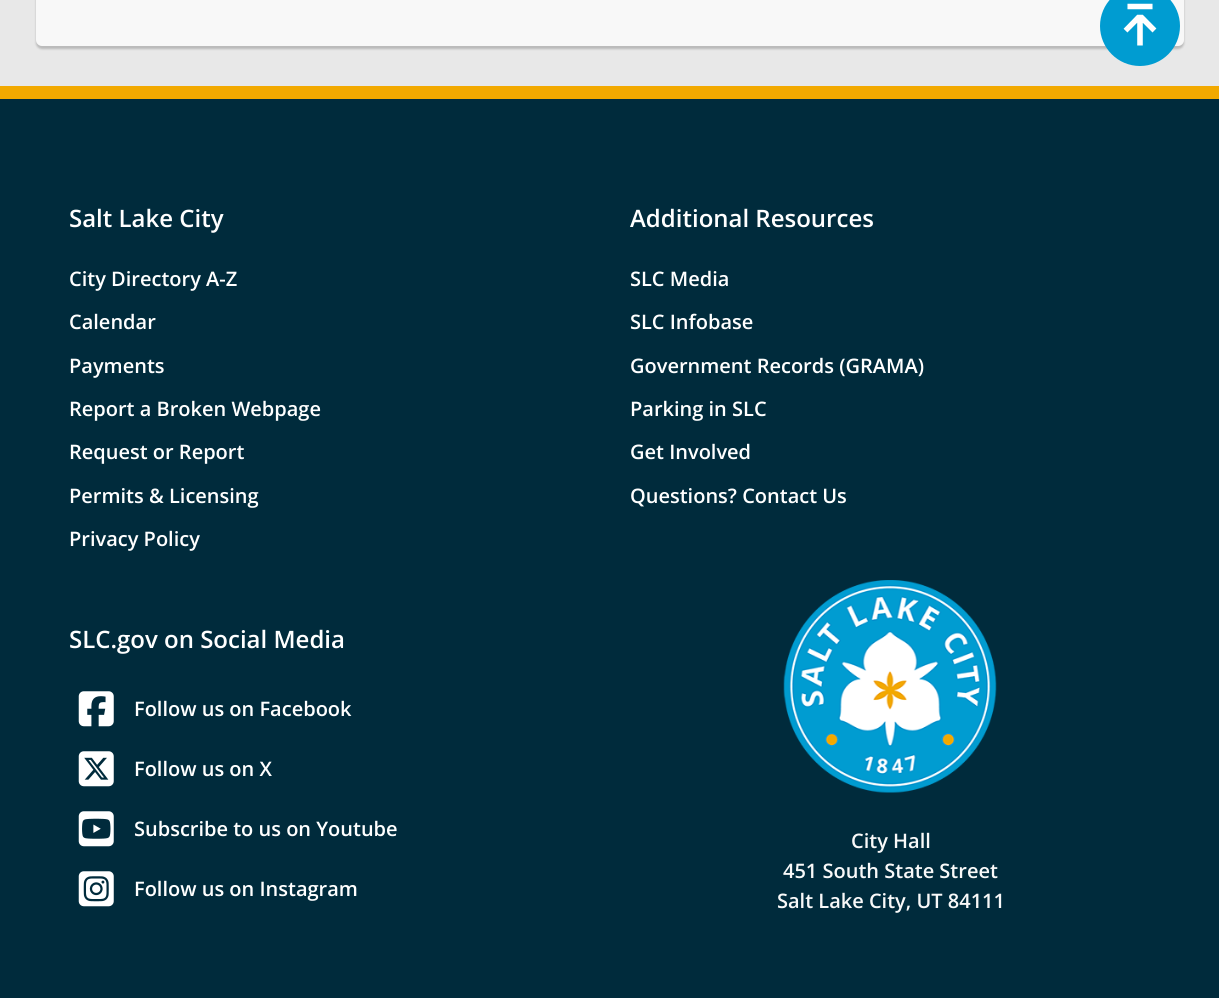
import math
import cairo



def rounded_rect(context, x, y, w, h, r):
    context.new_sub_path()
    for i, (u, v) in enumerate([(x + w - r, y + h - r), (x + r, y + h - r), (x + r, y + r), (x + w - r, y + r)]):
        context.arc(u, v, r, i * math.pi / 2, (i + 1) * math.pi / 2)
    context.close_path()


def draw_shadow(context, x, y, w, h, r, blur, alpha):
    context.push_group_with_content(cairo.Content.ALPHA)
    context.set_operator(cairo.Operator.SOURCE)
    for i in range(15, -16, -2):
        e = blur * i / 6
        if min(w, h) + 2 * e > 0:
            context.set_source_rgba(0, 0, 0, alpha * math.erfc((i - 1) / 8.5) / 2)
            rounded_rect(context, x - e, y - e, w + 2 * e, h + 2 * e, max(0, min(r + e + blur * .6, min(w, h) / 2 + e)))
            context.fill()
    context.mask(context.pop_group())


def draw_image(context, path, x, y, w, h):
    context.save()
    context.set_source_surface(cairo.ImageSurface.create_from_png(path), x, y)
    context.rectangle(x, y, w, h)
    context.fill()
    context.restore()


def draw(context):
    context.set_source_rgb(232 / 255, 232 / 255, 232 / 255)
    context.paint()
    context.set_source_rgb(0, 0, 0)
    draw_shadow(context, 36, -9, 1148, 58, 6, 1, 0.2)
    context.set_source_rgb(248 / 255, 248 / 255, 248 / 255)
    rounded_rect(context, 36, -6, 1148, 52, 6)
    context.fill()
    context.set_source_rgb(0, 43 / 255, 60 / 255)
    context.rectangle(0, 99, 1219, 899)
    context.fill()
    context.set_source_rgb(242 / 255, 169 / 255, 0)
    context.rectangle(0, 86, 1219, 13)
    context.fill()
    context.set_source_rgb(0, 156 / 255, 209 / 255)
    context.arc(1140, 26, 40, 0, 2 * math.pi)
    context.fill()
    draw_image(context, "images/1.png", 1123, 3, 34, 43)
    draw_image(context, "images/2.png", 78, 691, 36, 36)
    draw_image(context, "images/3.png", 78, 751, 36, 36)
    draw_image(context, "images/4.png", 78, 811, 36, 36)
    draw_image(context, "images/5.png", 78, 871, 36, 36)
    draw_image(context, "images/6.png", 783, 580, 214, 213)
    context.select_font_face("Open Sans SemiBold")
    context.set_font_size(24)
    context.set_source_rgb(1, 1, 1)
    context.move_to(69, 227)
    context.show_text("Salt Lake City")
    context.set_font_size(20)
    context.move_to(69, 286)
    context.show_text("City Directory A-Z")
    context.move_to(69, 329)
    context.show_text("Calendar")
    context.move_to(69, 373)
    context.show_text("Payments")
    context.move_to(69, 416)
    context.show_text("Report a Broken Webpage")
    context.move_to(69, 459)
    context.show_text("Request or Report")
    context.move_to(69, 503)
    context.show_text("Permits & Licensing")
    context.move_to(69, 546)
    context.show_text("Privacy Policy")
    context.set_font_size(24)
    context.move_to(630, 227)
    context.show_text("Additional Resources")
    context.set_font_size(20)
    context.move_to(630, 286)
    context.show_text("SLC Media")
    context.move_to(630, 329)
    context.show_text("SLC Infobase")
    context.move_to(630, 373)
    context.show_text("Government Records (GRAMA)")
    context.move_to(630, 416)
    context.show_text("Parking in SLC")
    context.move_to(630, 459)
    context.show_text("Get Involved")
    context.move_to(630, 503)
    context.show_text("Questions? Contact Us")
    context.set_font_size(24)
    context.move_to(69, 648)
    context.show_text("SLC.gov on Social Media")
    context.set_font_size(20)
    context.move_to(134, 716)
    context.show_text("Follow us on Facebook")
    context.move_to(134, 776)
    context.show_text("Follow us on X")
    context.move_to(134, 836)
    context.show_text("Subscribe to us on Youtube")
    context.move_to(134, 896)
    context.show_text("Follow us on Instagram")
    context.set_source_rgb(249 / 255, 249 / 255, 249 / 255)
    context.move_to(851, 848)
    context.show_text("City Hall")
    context.move_to(783, 878)
    context.show_text("451 South State Street")
    context.move_to(777, 908)
    context.show_text("Salt Lake City, UT 84111")


surface = cairo.ImageSurface(cairo.Format.RGB24, 1219, 998)
context = cairo.Context(surface)
options = cairo.FontOptions()
options.set_hint_metrics(cairo.HintMetrics.OFF)
options.set_hint_style(cairo.HintStyle.NONE)
context.set_font_options(options)
context.set_miter_limit(4)
draw(context)
surface.write_to_png("out.png")
